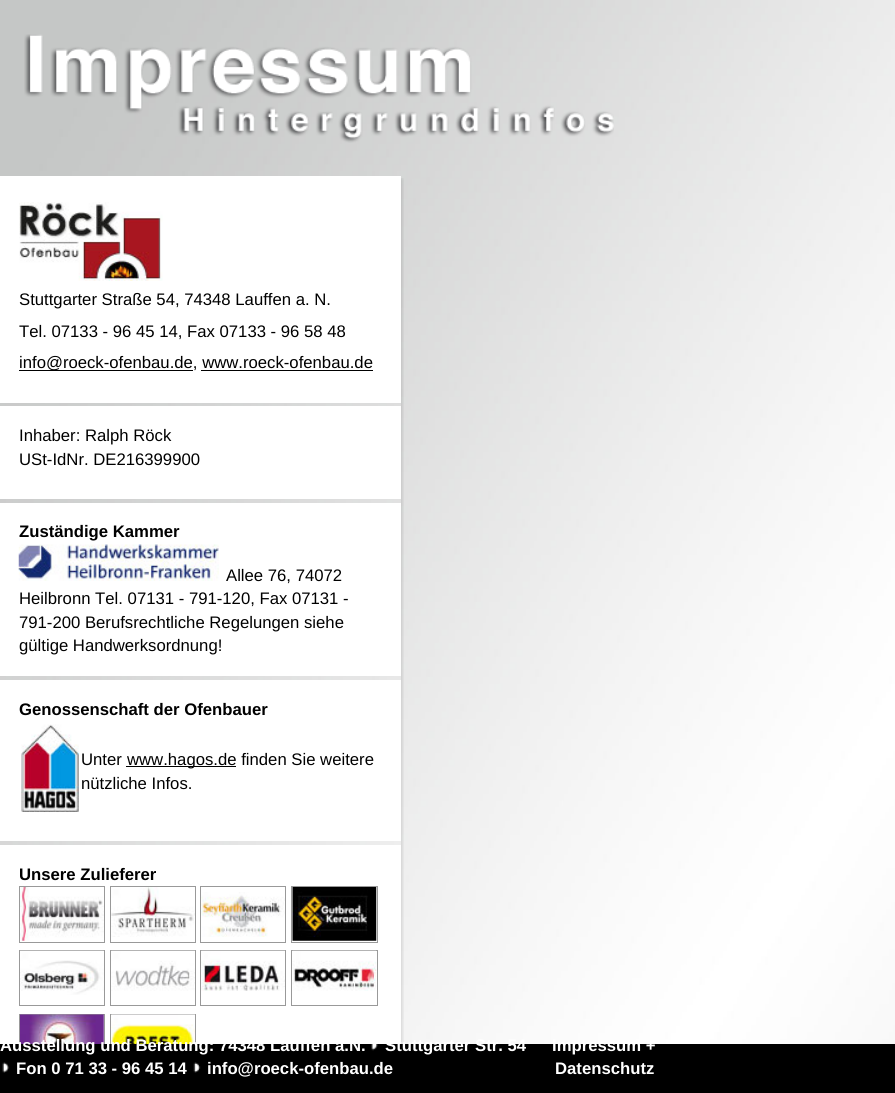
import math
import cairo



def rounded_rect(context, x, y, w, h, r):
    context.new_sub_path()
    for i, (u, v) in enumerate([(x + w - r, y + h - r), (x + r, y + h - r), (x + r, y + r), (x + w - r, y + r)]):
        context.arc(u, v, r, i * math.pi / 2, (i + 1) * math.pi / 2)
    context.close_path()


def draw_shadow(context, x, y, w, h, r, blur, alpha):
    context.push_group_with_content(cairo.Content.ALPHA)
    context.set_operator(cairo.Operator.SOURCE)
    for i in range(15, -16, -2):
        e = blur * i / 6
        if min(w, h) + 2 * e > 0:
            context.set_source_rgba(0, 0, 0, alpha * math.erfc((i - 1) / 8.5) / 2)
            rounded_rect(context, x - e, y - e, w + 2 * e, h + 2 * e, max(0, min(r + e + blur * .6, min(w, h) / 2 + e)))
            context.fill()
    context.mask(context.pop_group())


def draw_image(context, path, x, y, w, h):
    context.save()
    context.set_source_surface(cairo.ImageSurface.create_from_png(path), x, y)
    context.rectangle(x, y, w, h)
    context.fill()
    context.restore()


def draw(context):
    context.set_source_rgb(1, 1, 1)
    context.paint()
    draw_image(context, "images/1.png", 0, 0, 895, 1044)
    draw_image(context, "images/2.png", 24, 34, 590, 109)
    context.save()
    context.rectangle(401, 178, 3, 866)
    context.clip()
    context.set_source_rgb(0, 0, 0)
    draw_shadow(context, -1, 180, 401, 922, 0, 3, 0.3)
    context.restore()
    context.set_source_rgb(1, 1, 1)
    context.rectangle(0, 176, 401, 227)
    context.fill()
    draw_image(context, "images/3.png", 19, 202, 144, 79)
    context.set_source_rgb(0, 0, 0)
    context.rectangle(19, 370, 174, 1)
    context.fill()
    context.rectangle(201, 370, 172, 1)
    context.fill()
    context.set_source_rgb(1, 1, 1)
    context.rectangle(0, 406, 401, 93)
    context.fill()
    context.rectangle(0, 503, 401, 173)
    context.fill()
    draw_image(context, "images/4.png", 18, 544, 201, 37)
    context.rectangle(0, 680, 401, 161)
    context.fill()
    draw_image(context, "images/5.png", 21, 724, 58, 88)
    context.set_source_rgb(0, 0, 0)
    context.rectangle(126, 766, 110, 1)
    context.fill()
    context.set_source_rgb(1, 1, 1)
    context.rectangle(0, 845, 401, 199)
    context.fill()
    context.rectangle(19.5, 886.5, 85, 56)
    context.set_source_rgb(153 / 255, 153 / 255, 153 / 255)
    context.set_line_width(1)
    context.stroke()
    context.rectangle(110.5, 886.5, 85, 56)
    context.stroke()
    context.rectangle(200.5, 886.5, 85, 56)
    context.stroke()
    context.rectangle(291.5, 886.5, 86, 56)
    context.stroke()
    draw_image(context, "images/6.png", 20, 887, 84, 54)
    draw_image(context, "images/7.png", 111, 887, 84, 50)
    draw_image(context, "images/8.png", 201, 892, 84, 45)
    draw_image(context, "images/9.png", 292, 887, 85, 54)
    context.rectangle(19.5, 950.5, 85, 55)
    context.stroke()
    draw_image(context, "images/10.png", 20, 950, 84, 45)
    context.rectangle(110.5, 950.5, 85, 55)
    context.stroke()
    draw_image(context, "images/11.png", 111, 950, 84, 41)
    context.rectangle(200.5, 950.5, 85, 55)
    context.stroke()
    draw_image(context, "images/12.png", 201, 950, 84, 41)
    context.rectangle(291.5, 950.5, 86, 55)
    context.stroke()
    draw_image(context, "images/13.png", 292, 950, 85, 41)
    context.rectangle(19.5, 1014.5, 85, 55)
    context.stroke()
    draw_image(context, "images/14.png", 20, 1014, 84, 30)
    context.rectangle(110.5, 1014.5, 85, 55)
    context.stroke()
    draw_image(context, "images/15.png", 111, 1014, 84, 30)
    context.set_source_rgb(0, 0, 0)
    context.rectangle(0, 1044, 895, 49)
    context.fill()
    draw_image(context, "images/16.png", 371, 1044, 7, 7)
    draw_image(context, "images/17.png", 2, 1062, 7, 11)
    draw_image(context, "images/18.png", 193, 1062, 8, 11)
    context.select_font_face("Liberation Sans")
    context.set_font_size(16.7)
    context.move_to(19, 305)
    context.show_text("Stuttgarter Straße 54, 74348 Lauffen a. N.")
    context.move_to(19, 337)
    context.show_text("Tel. 07133 - 96 45 14, Fax 07133 - 96 58 48")
    context.move_to(19, 368)
    context.show_text("info@roeck-ofenbau.de, www.roeck-ofenbau.de")
    context.move_to(19, 441)
    context.show_text("Inhaber: Ralph Röck")
    context.move_to(19, 465)
    context.show_text("USt-IdNr. DE216399900")
    context.select_font_face("Liberation Sans", cairo.FontSlant.NORMAL, cairo.FontWeight.BOLD)
    context.move_to(19, 537)
    context.show_text("Zuständige Kammer")
    context.select_font_face("Liberation Sans")
    context.move_to(226, 581)
    context.show_text("Allee 76, 74072")
    context.move_to(19, 604)
    context.show_text("Heilbronn Tel. 07131 - 791-120, Fax 07131 -")
    context.move_to(19, 628)
    context.show_text("791-200 Berufsrechtliche Regelungen siehe")
    context.move_to(19, 651)
    context.show_text("gültige Handwerksordnung!")
    context.select_font_face("Liberation Sans", cairo.FontSlant.NORMAL, cairo.FontWeight.BOLD)
    context.move_to(19, 715)
    context.show_text("Genossenschaft der Ofenbauer")
    context.select_font_face("Liberation Sans")
    context.move_to(81, 765)
    context.show_text("Unter")
    context.move_to(127, 765)
    context.show_text("www.hagos.de finden Sie weitere")
    context.move_to(81, 789)
    context.show_text("nützliche Infos.")
    context.select_font_face("Liberation Sans", cairo.FontSlant.NORMAL, cairo.FontWeight.BOLD)
    context.move_to(19, 880)
    context.show_text("Unsere Zulieferer")
    context.set_source_rgb(1, 1, 1)
    context.move_to(0, 1051)
    context.show_text("Ausstellung und Beratung: 74348 Lauffen a.N.")
    context.move_to(385, 1051)
    context.show_text("Stuttgarter Str. 54")
    context.move_to(16, 1074)
    context.show_text("Fon 0 71 33 - 96 45 14")
    context.move_to(207, 1074)
    context.show_text("info@roeck-ofenbau.de")
    context.move_to(552, 1051)
    context.show_text("Impressum +")
    context.move_to(555, 1074)
    context.show_text("Datenschutz")


surface = cairo.ImageSurface(cairo.Format.RGB24, 895, 1093)
context = cairo.Context(surface)
options = cairo.FontOptions()
options.set_hint_metrics(cairo.HintMetrics.OFF)
options.set_hint_style(cairo.HintStyle.NONE)
context.set_font_options(options)
context.set_miter_limit(4)
draw(context)
surface.write_to_png("out.png")
